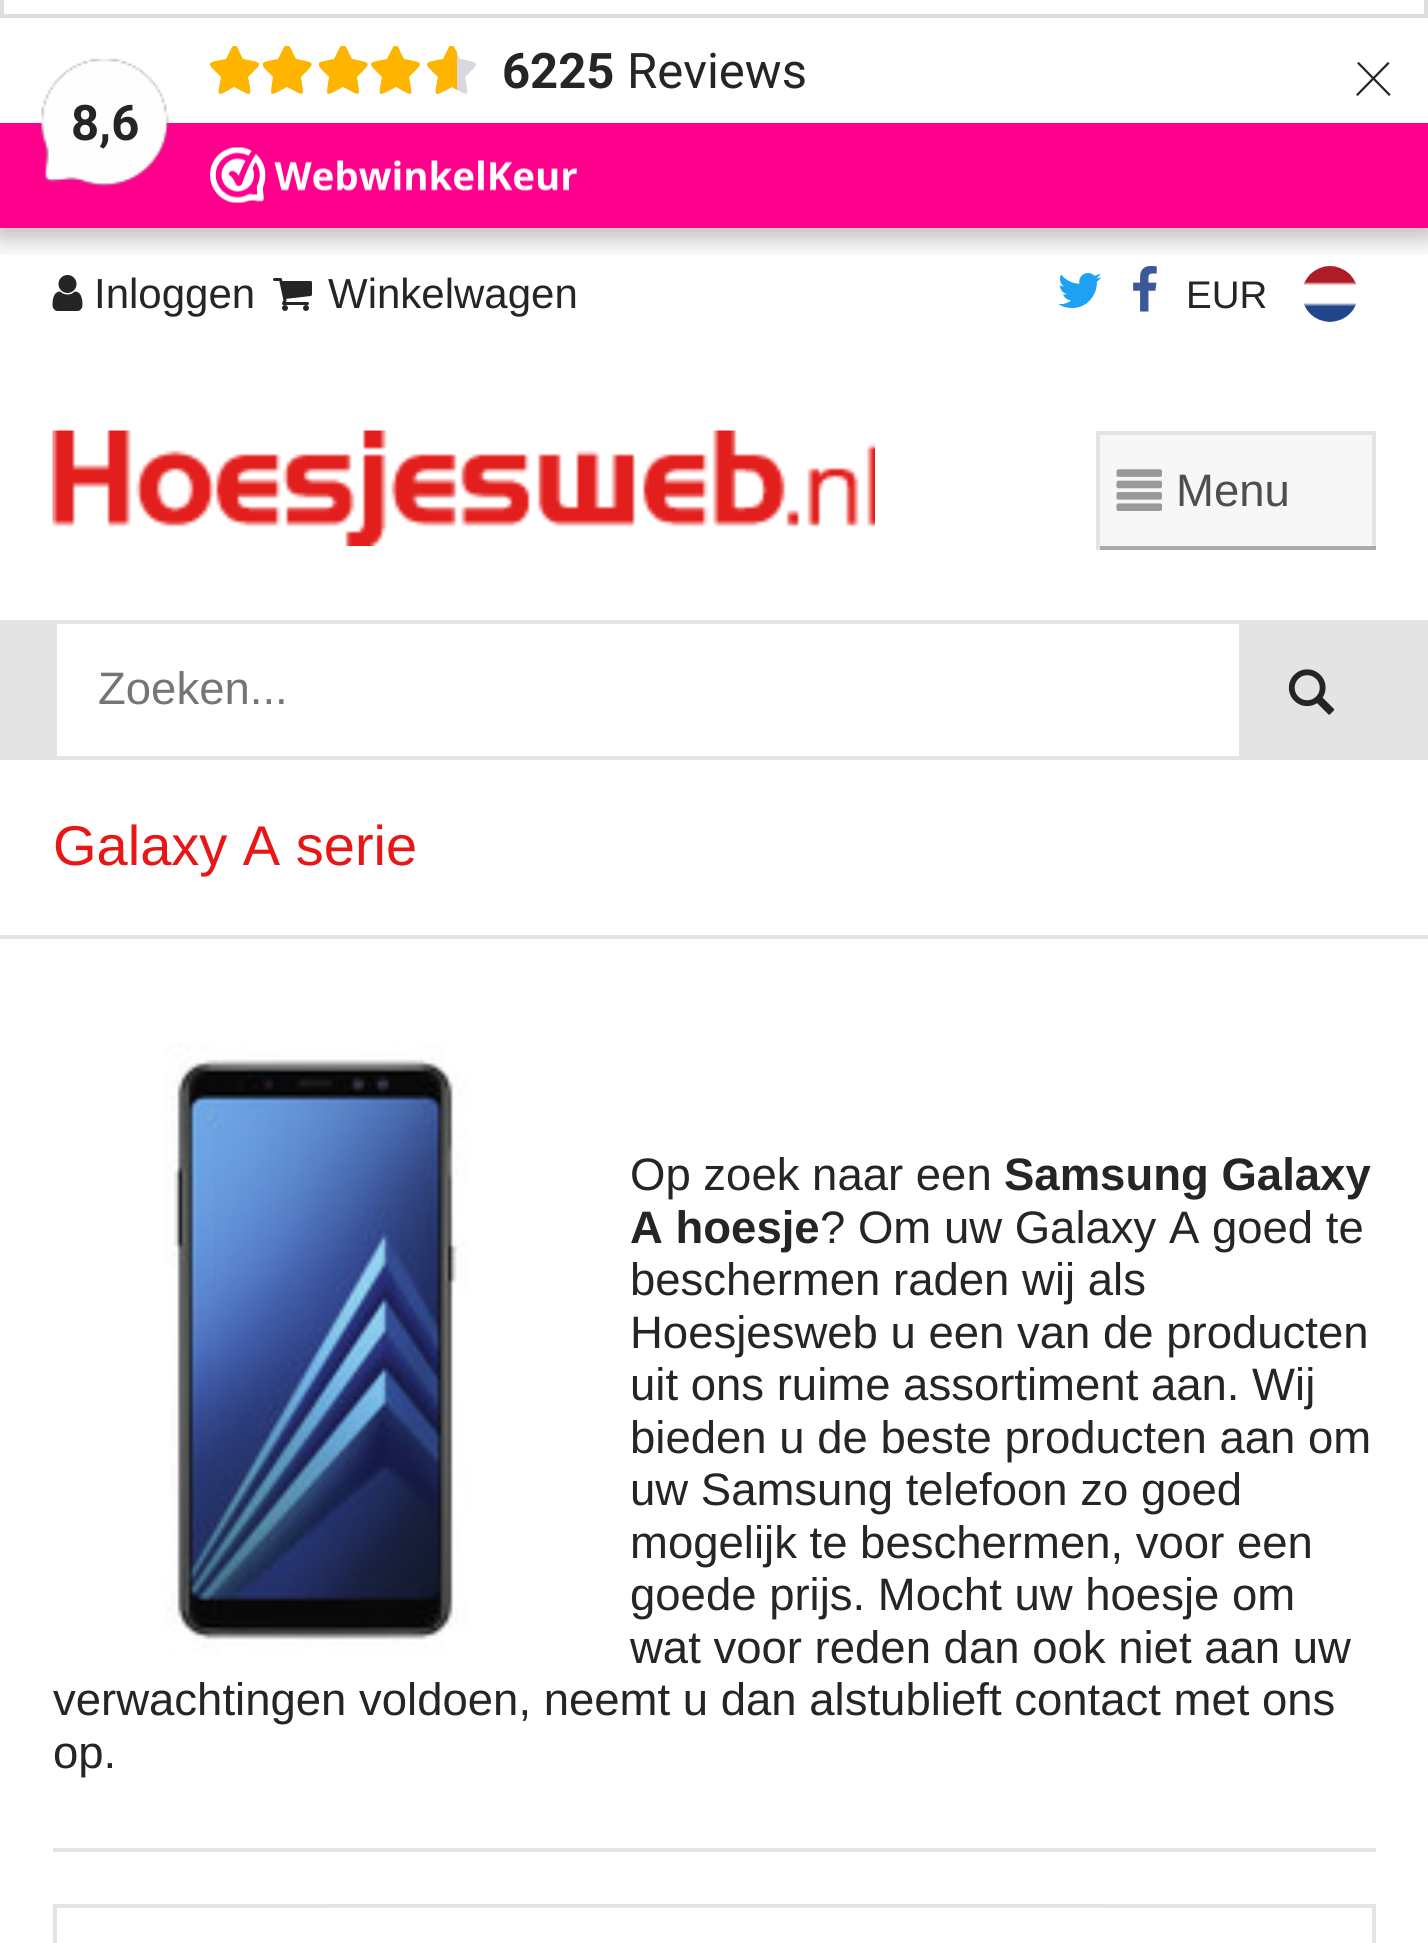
import math
import cairo



def rounded_rect(context, x, y, w, h, r):
    context.new_sub_path()
    for i, (u, v) in enumerate([(x + w - r, y + h - r), (x + r, y + h - r), (x + r, y + r), (x + w - r, y + r)]):
        context.arc(u, v, r, i * math.pi / 2, (i + 1) * math.pi / 2)
    context.close_path()


def draw_shadow(context, x, y, w, h, r, blur, alpha):
    context.push_group_with_content(cairo.Content.ALPHA)
    context.set_operator(cairo.Operator.SOURCE)
    for i in range(15, -16, -2):
        e = blur * i / 6
        if min(w, h) + 2 * e > 0:
            context.set_source_rgba(0, 0, 0, alpha * math.erfc((i - 1) / 8.5) / 2)
            rounded_rect(context, x - e, y - e, w + 2 * e, h + 2 * e, max(0, min(r + e + blur * .6, min(w, h) / 2 + e)))
            context.fill()
    context.mask(context.pop_group())


def draw_image(context, path, x, y, w, h):
    context.save()
    context.set_source_surface(cairo.ImageSurface.create_from_png(path), x, y)
    context.rectangle(x, y, w, h)
    context.fill()
    context.restore()


def draw(context):
    context.set_source_rgb(1, 1, 1)
    context.paint()
    draw_image(context, "images/6.png", 1133, 266, 24, 46)
    draw_image(context, "images/7.png", 1303, 266, 54, 56)
    context.set_source_rgb(0, 0, 0)
    draw_shadow(context, -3, -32, 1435, 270, 0, 10.5, 0.15)
    context.set_source_rgb(1, 1, 1)
    context.rectangle(0, 18, 1428, 105)
    context.fill()
    draw_image(context, "images/3.png", 52, 275, 31, 36)
    draw_image(context, "images/4.png", 273, 278, 39, 33)
    draw_image(context, "images/5.png", 1058, 273, 44, 35)
    context.save()
    context.rectangle(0, 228, 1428, 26)
    context.clip()
    context.set_source_rgb(0, 0, 0)
    draw_shadow(context, 0, 25, 1428, 210, 0, 17.5, 0.15)
    context.restore()
    context.rectangle(2, -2, 1424, 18)
    context.fill_preserve()
    context.set_source_rgb(222 / 255, 222 / 255, 222 / 255)
    context.set_line_width(4)
    context.stroke()
    context.save()
    context.rectangle(210, 46, 49, 49)
    context.clip()
    context.set_source_rgb(1, 180 / 255, 0)
    context.new_path()
    context.move_to(232, 47)
    context.line_to(234, 45)
    context.curve_to(237, 45, 238, 49, 239, 51)
    context.line_to(243, 59)
    context.curve_to(264, 63, 263, 62, 248, 77)
    context.curve_to(252, 98, 253, 97, 234, 87)
    context.curve_to(216, 97, 217, 98, 221, 77)
    context.curve_to(206, 62, 205, 63, 226, 59)
    context.close_path()
    context.fill()
    context.restore()
    context.save()
    context.rectangle(263, 46, 49, 49)
    context.clip()
    context.set_source_rgb(1, 180 / 255, 0)
    context.new_path()
    context.move_to(284, 47)
    context.line_to(286, 45)
    context.curve_to(290, 45, 291, 49, 292, 51)
    context.line_to(296, 59)
    context.curve_to(316, 63, 316, 62, 301, 77)
    context.curve_to(304, 98, 306, 97, 287, 87)
    context.curve_to(268, 97, 270, 98, 273, 77)
    context.curve_to(258, 62, 258, 63, 278, 59)
    context.close_path()
    context.fill()
    context.restore()
    context.save()
    context.rectangle(319, 46, 49, 49)
    context.clip()
    context.set_source_rgb(1, 180 / 255, 0)
    context.new_path()
    context.move_to(340, 47)
    context.line_to(342, 45)
    context.curve_to(346, 45, 347, 49, 348, 51)
    context.line_to(352, 59)
    context.curve_to(372, 63, 372, 62, 357, 77)
    context.curve_to(360, 98, 362, 97, 343, 87)
    context.curve_to(324, 97, 326, 98, 329, 77)
    context.curve_to(314, 62, 314, 63, 334, 59)
    context.close_path()
    context.fill()
    context.restore()
    context.save()
    context.rectangle(371, 46, 49, 49)
    context.clip()
    context.set_source_rgb(1, 180 / 255, 0)
    context.new_path()
    context.move_to(393, 47)
    context.line_to(395, 45)
    context.curve_to(398, 45, 399, 49, 400, 51)
    context.line_to(404, 59)
    context.curve_to(425, 63, 424, 62, 409, 77)
    context.curve_to(413, 98, 414, 97, 396, 87)
    context.curve_to(377, 97, 378, 98, 382, 77)
    context.curve_to(367, 62, 366, 63, 387, 59)
    context.close_path()
    context.fill()
    context.restore()
    context.save()
    context.rectangle(427, 46, 49, 49)
    context.clip()
    context.set_source_rgb(216 / 255, 216 / 255, 222 / 255)
    context.new_path()
    context.move_to(449, 47)
    context.line_to(451, 45)
    context.curve_to(454, 45, 455, 49, 456, 51)
    context.line_to(460, 59)
    context.curve_to(481, 63, 480, 62, 465, 77)
    context.curve_to(469, 98, 470, 97, 452, 87)
    context.curve_to(433, 97, 434, 98, 438, 77)
    context.curve_to(423, 62, 422, 63, 443, 59)
    context.close_path()
    context.fill()
    context.set_source_rgb(1, 180 / 255, 0)
    context.new_path()
    context.move_to(449, 47)
    context.curve_to(451, 42, 454, 47, 455, 49)
    context.line_to(457, 52)
    context.line_to(457, 90)
    context.line_to(452, 87)
    context.curve_to(433, 97, 434, 98, 438, 77)
    context.curve_to(423, 62, 422, 63, 443, 59)
    context.close_path()
    context.fill()
    context.restore()
    context.set_source_rgb(254 / 255, 0, 140 / 255)
    context.rectangle(0, 123, 1428, 105)
    context.fill()
    draw_image(context, "images/1.png", 41, 58, 128, 129)
    draw_image(context, "images/2.png", 210, 147, 367, 57)
    draw_image(context, "images/8.png", 52, 430, 823, 116)
    context.set_source_rgb(247 / 255, 247 / 255, 247 / 255)
    context.rectangle(1100, 435, 272, 111)
    context.fill()
    draw_image(context, "images/9.png", 1116, 469, 46, 42)
    context.set_source_rgb(228 / 255, 228 / 255, 228 / 255)
    context.rectangle(1096, 431, 280, 4)
    context.fill()
    context.rectangle(1372, 431, 4, 119)
    context.fill()
    context.set_source_rgb(170 / 255, 170 / 255, 170 / 255)
    context.rectangle(1096, 546, 280, 4)
    context.fill()
    context.set_source_rgb(228 / 255, 228 / 255, 228 / 255)
    context.rectangle(1096, 431, 4, 119)
    context.fill()
    context.rectangle(0, 620, 1428, 140)
    context.fill()
    context.set_source_rgb(1, 1, 1)
    context.rectangle(57, 624, 1182, 132)
    context.fill()
    draw_image(context, "images/10.png", 1288, 669, 47, 46)
    context.set_source_rgb(228 / 255, 228 / 255, 228 / 255)
    context.rectangle(0, 935, 1428, 4)
    context.fill()
    draw_image(context, "images/11.png", 165, 1043, 303, 612)
    context.rectangle(53, 1848, 1323, 4)
    context.fill()
    context.rectangle(55, 1906, 1319, 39)
    context.stroke()
    draw_image(context, "images/12.png", 328, 1907, 775, 1)
    context.select_font_face("Roboto", cairo.FontSlant.NORMAL, cairo.FontWeight.BOLD)
    context.set_font_size(49)
    context.set_source_rgb(37 / 255, 37 / 255, 37 / 255)
    context.move_to(502, 88)
    context.show_text("6225")
    context.select_font_face("Roboto")
    context.move_to(627, 88)
    context.show_text("Reviews")
    context.select_font_face("Roboto Thin")
    context.set_font_size(84)
    context.move_to(1352, 96)
    context.show_text("×")
    context.select_font_face("Roboto", cairo.FontSlant.NORMAL, cairo.FontWeight.BOLD)
    context.set_font_size(49)
    context.move_to(71, 140)
    context.show_text("8,6")
    context.select_font_face("Liberation Sans")
    context.set_font_size(42)
    context.move_to(94, 308)
    context.show_text("Inloggen")
    context.move_to(328, 308)
    context.show_text("Winkelwagen")
    context.set_font_size(38.5)
    context.move_to(1186, 308)
    context.show_text("EUR")
    context.set_font_size(45.5)
    context.set_source_rgb(78 / 255, 78 / 255, 78 / 255)
    context.move_to(1176, 506)
    context.show_text("Menu")
    context.set_source_rgb(117 / 255, 117 / 255, 117 / 255)
    context.move_to(98, 704)
    context.show_text("Zoeken...")
    context.set_font_size(56)
    context.set_source_rgb(232 / 255, 22 / 255, 22 / 255)
    context.move_to(53, 865)
    context.show_text("Galaxy A serie")
    context.set_font_size(45.5)
    context.set_source_rgb(37 / 255, 37 / 255, 37 / 255)
    context.move_to(630, 1190)
    context.show_text("Op zoek naar een")
    context.select_font_face("Liberation Sans", cairo.FontSlant.NORMAL, cairo.FontWeight.BOLD)
    context.move_to(1004, 1190)
    context.show_text("Samsung Galaxy")
    context.move_to(630, 1243)
    context.show_text("A hoesje")
    context.select_font_face("Liberation Sans")
    context.move_to(820, 1243)
    context.show_text("? Om uw Galaxy A goed te")
    context.move_to(630, 1295)
    context.show_text("beschermen raden wij als")
    context.move_to(630, 1348)
    context.show_text("Hoesjesweb u een van de producten")
    context.move_to(630, 1400)
    context.show_text("uit ons ruime assortiment aan. Wij")
    context.move_to(630, 1453)
    context.show_text("bieden u de beste producten aan om")
    context.move_to(630, 1505)
    context.show_text("uw Samsung telefoon zo goed")
    context.move_to(630, 1558)
    context.show_text("mogelijk te beschermen, voor een")
    context.move_to(630, 1610)
    context.show_text("goede prijs. Mocht uw hoesje om")
    context.move_to(630, 1663)
    context.show_text("wat voor reden dan ook niet aan uw")
    context.move_to(53, 1715)
    context.show_text("verwachtingen voldoen, neemt u dan alstublieft contact met ons")
    context.move_to(53, 1768)
    context.show_text("op.")


surface = cairo.ImageSurface(cairo.Format.RGB24, 1428, 1943)
context = cairo.Context(surface)
options = cairo.FontOptions()
options.set_hint_metrics(cairo.HintMetrics.OFF)
options.set_hint_style(cairo.HintStyle.NONE)
context.set_font_options(options)
context.set_miter_limit(4)
draw(context)
surface.write_to_png("out.png")
